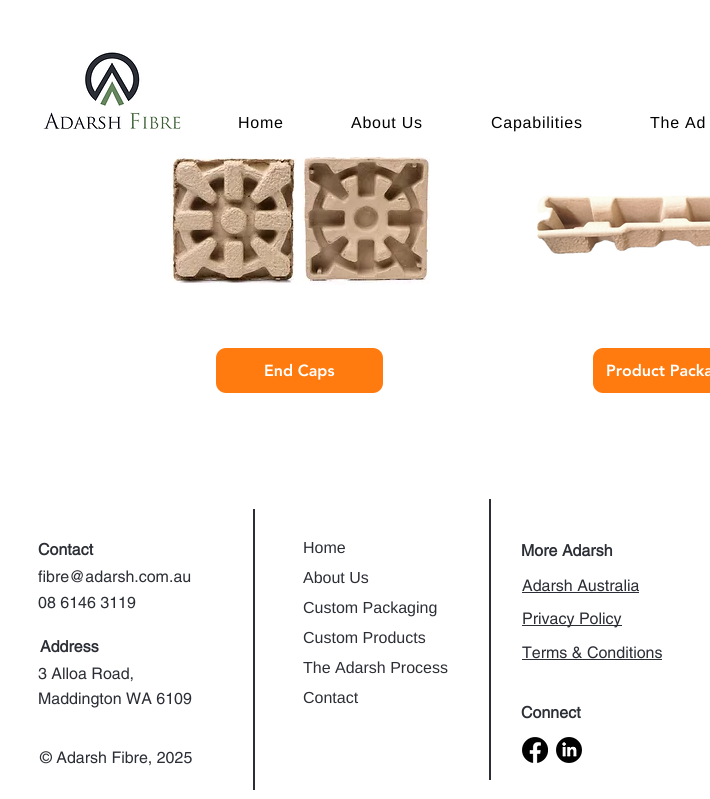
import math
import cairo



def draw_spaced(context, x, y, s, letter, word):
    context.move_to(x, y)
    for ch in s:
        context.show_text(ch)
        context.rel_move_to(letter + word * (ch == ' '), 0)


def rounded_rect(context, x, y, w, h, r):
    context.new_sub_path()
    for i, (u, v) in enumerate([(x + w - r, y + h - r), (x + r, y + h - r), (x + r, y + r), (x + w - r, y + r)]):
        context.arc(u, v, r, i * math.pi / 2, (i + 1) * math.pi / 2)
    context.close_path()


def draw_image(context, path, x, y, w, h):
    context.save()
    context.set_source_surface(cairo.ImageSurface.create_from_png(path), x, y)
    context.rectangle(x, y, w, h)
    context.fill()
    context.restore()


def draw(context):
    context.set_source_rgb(1, 1, 1)
    context.paint()
    draw_image(context, "images/1.png", 43, 52, 138, 77)
    draw_image(context, "images/2.png", 170, 157, 260, 128)
    draw_image(context, "images/3.png", 537, 195, 173, 59)
    context.set_source_rgb(1, 123 / 255, 15 / 255)
    rounded_rect(context, 217, 349, 165, 43, 9)
    context.fill_preserve()
    context.stroke()
    rounded_rect(context, 594, 349, 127, 43, 9)
    context.fill_preserve()
    context.stroke()
    context.set_source_rgb(43 / 255, 46 / 255, 53 / 255)
    context.rectangle(253, 509, 2, 281)
    context.fill()
    context.rectangle(489, 499, 2, 281)
    context.fill()
    context.rectangle(522, 592, 117, 1)
    context.fill()
    context.rectangle(522, 625, 100, 1)
    context.fill()
    context.rectangle(522, 659, 140, 1)
    context.fill()
    draw_image(context, "images/4.png", 522, 737, 26, 26)
    draw_image(context, "images/5.png", 556, 737, 26, 26)
    context.select_font_face("Liberation Sans")
    context.set_font_size(16)
    context.set_source_rgb(0, 0, 0)
    draw_spaced(context, 238, 128, "Home", 0.75, 0)
    draw_spaced(context, 351, 128, "About Us", 0.75, 0)
    draw_spaced(context, 491, 128, "Capabilities", 0.75, 0)
    draw_spaced(context, 650, 128, "The Ad", 0.75, 0)
    context.select_font_face("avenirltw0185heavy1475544 Black")
    context.set_source_rgb(1, 1, 1)
    context.move_to(264, 376)
    context.show_text("End Caps")
    context.move_to(606, 376)
    context.show_text("Product Packa")
    context.select_font_face("helvetica", cairo.FontSlant.NORMAL, cairo.FontWeight.BOLD)
    context.set_source_rgb(43 / 255, 46 / 255, 53 / 255)
    context.move_to(38, 555)
    context.show_text("Contact")
    context.select_font_face("Liberation Sans")
    context.move_to(303, 553)
    context.show_text("Home")
    context.move_to(303, 583)
    context.show_text("About Us")
    context.move_to(303, 613)
    context.show_text("Custom Packaging")
    context.move_to(303, 643)
    context.show_text("Custom Products")
    context.move_to(303, 673)
    context.show_text("The Adarsh Process")
    context.move_to(303, 703)
    context.show_text("Contact")
    context.select_font_face("helvetica", cairo.FontSlant.NORMAL, cairo.FontWeight.BOLD)
    context.move_to(521, 556)
    context.show_text("More Adarsh")
    context.select_font_face("helvetica")
    context.move_to(38, 582)
    context.show_text("fibre@adarsh.com.au")
    context.move_to(38, 608)
    context.show_text("08 6146 3119")
    context.move_to(522, 591)
    context.show_text("Adarsh Australia")
    context.move_to(522, 624)
    context.show_text("Privacy Policy")
    context.select_font_face("helvetica", cairo.FontSlant.NORMAL, cairo.FontWeight.BOLD)
    context.move_to(40, 652)
    context.show_text("Address")
    context.select_font_face("helvetica")
    context.move_to(522, 658)
    context.show_text("Terms & Conditions")
    context.move_to(38, 679)
    context.show_text("3 Alloa Road,")
    context.move_to(38, 704)
    context.show_text("Maddington WA 6109")
    context.select_font_face("helvetica", cairo.FontSlant.NORMAL, cairo.FontWeight.BOLD)
    context.move_to(521, 718)
    context.show_text("Connect")
    context.select_font_face("helvetica")
    context.move_to(40, 763)
    context.show_text("© Adarsh Fibre, 2025")


surface = cairo.ImageSurface(cairo.Format.RGB24, 710, 799)
context = cairo.Context(surface)
options = cairo.FontOptions()
options.set_hint_metrics(cairo.HintMetrics.OFF)
options.set_hint_style(cairo.HintStyle.NONE)
context.set_font_options(options)
context.set_miter_limit(4)
draw(context)
surface.write_to_png("out.png")
